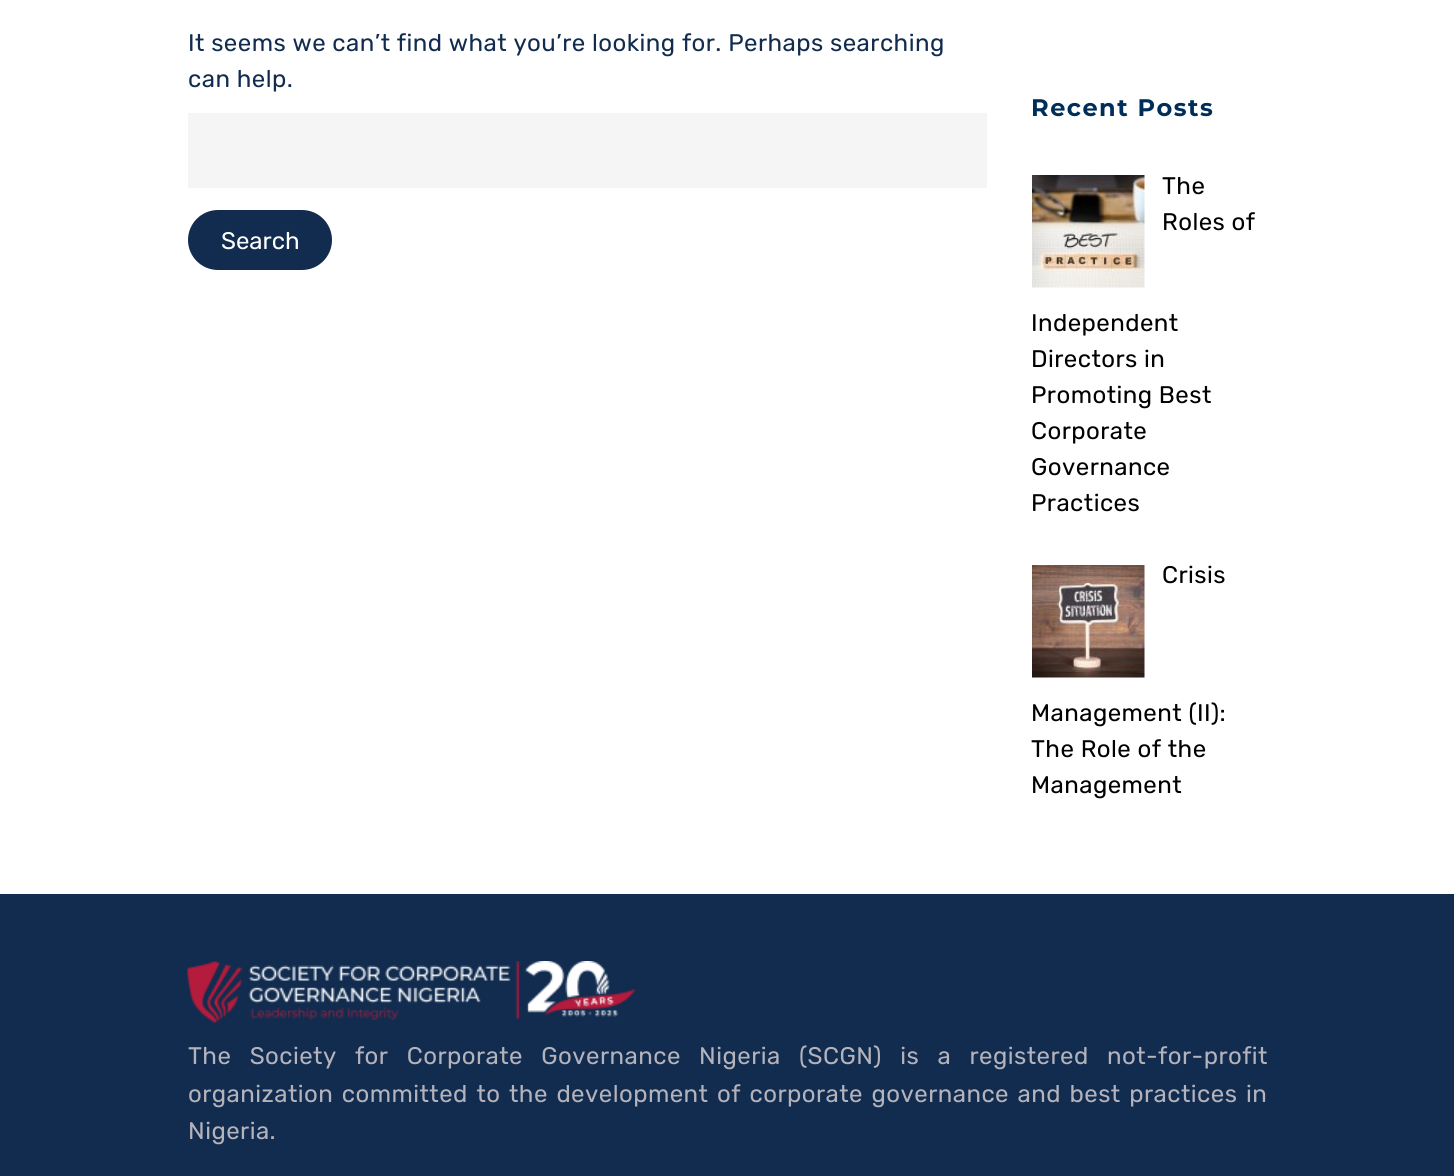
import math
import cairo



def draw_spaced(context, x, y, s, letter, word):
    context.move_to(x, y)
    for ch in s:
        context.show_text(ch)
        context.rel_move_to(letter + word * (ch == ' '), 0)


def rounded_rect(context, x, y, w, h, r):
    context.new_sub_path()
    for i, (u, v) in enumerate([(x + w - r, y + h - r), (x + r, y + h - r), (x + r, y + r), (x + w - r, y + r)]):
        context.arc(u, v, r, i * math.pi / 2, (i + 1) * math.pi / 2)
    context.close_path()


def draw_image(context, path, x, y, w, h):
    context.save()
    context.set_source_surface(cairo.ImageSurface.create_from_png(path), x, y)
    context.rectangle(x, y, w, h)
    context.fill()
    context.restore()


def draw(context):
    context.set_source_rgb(1, 1, 1)
    context.paint()
    context.set_source_rgb(245 / 255, 245 / 255, 245 / 255)
    context.rectangle(188, 113, 799, 75)
    context.fill()
    context.set_source_rgb(17 / 255, 44 / 255, 79 / 255)
    rounded_rect(context, 188, 210, 144, 60, 30)
    context.fill()
    draw_image(context, "images/1.png", 1032, 175, 113, 113)
    draw_image(context, "images/2.png", 1032, 565, 113, 113)
    context.rectangle(0, 894, 1454, 282)
    context.fill()
    draw_image(context, "images/3.png", 187, 961, 449, 62)
    context.select_font_face("Rubik")
    context.set_font_size(24)
    draw_spaced(context, 188, 51, "It seems we can’t find what you’re looking for. Perhaps searching", 0.45, 0)
    draw_spaced(context, 188, 87, "can help.", 0.45, 0)
    context.set_source_rgb(1, 1, 1)
    context.move_to(221, 249)
    context.show_text("Search")
    context.select_font_face("Montserrat", cairo.FontSlant.NORMAL, cairo.FontWeight.BOLD)
    context.set_source_rgb(0, 46 / 255, 91 / 255)
    draw_spaced(context, 1031, 116, "Recent Posts", 1.5, 0)
    context.select_font_face("Rubik")
    context.set_source_rgb(0, 0, 0)
    draw_spaced(context, 1162, 194, "The", 0.45, 0)
    draw_spaced(context, 1162, 230, "Roles of", 0.45, 0)
    draw_spaced(context, 1031, 331, "Independent", 0.45, 0)
    draw_spaced(context, 1031, 367, "Directors in", 0.45, 0)
    draw_spaced(context, 1031, 403, "Promoting Best", 0.45, 0)
    draw_spaced(context, 1031, 439, "Corporate", 0.45, 0)
    draw_spaced(context, 1031, 475, "Governance", 0.45, 0)
    draw_spaced(context, 1031, 511, "Practices", 0.45, 0)
    draw_spaced(context, 1162, 583, "Crisis", 0.45, 0)
    draw_spaced(context, 1031, 721, "Management (II):", 0.45, 0)
    draw_spaced(context, 1031, 757, "The Role of the", 0.45, 0)
    draw_spaced(context, 1031, 793, "Management", 0.45, 0)
    context.set_source_rgb(180 / 255, 178 / 255, 187 / 255)
    draw_spaced(context, 188, 1064, "The Society for Corporate Governance Nigeria (SCGN) is a registered not-for-profit", 0.45, 12)
    draw_spaced(context, 188, 1102, "organization committed to the development of corporate governance and best practices in", 0.45, 2.25)
    draw_spaced(context, 188, 1139, "Nigeria.", 0.45, 0)


surface = cairo.ImageSurface(cairo.Format.RGB24, 1454, 1176)
context = cairo.Context(surface)
options = cairo.FontOptions()
options.set_hint_metrics(cairo.HintMetrics.OFF)
options.set_hint_style(cairo.HintStyle.NONE)
context.set_font_options(options)
context.set_miter_limit(4)
draw(context)
surface.write_to_png("out.png")
